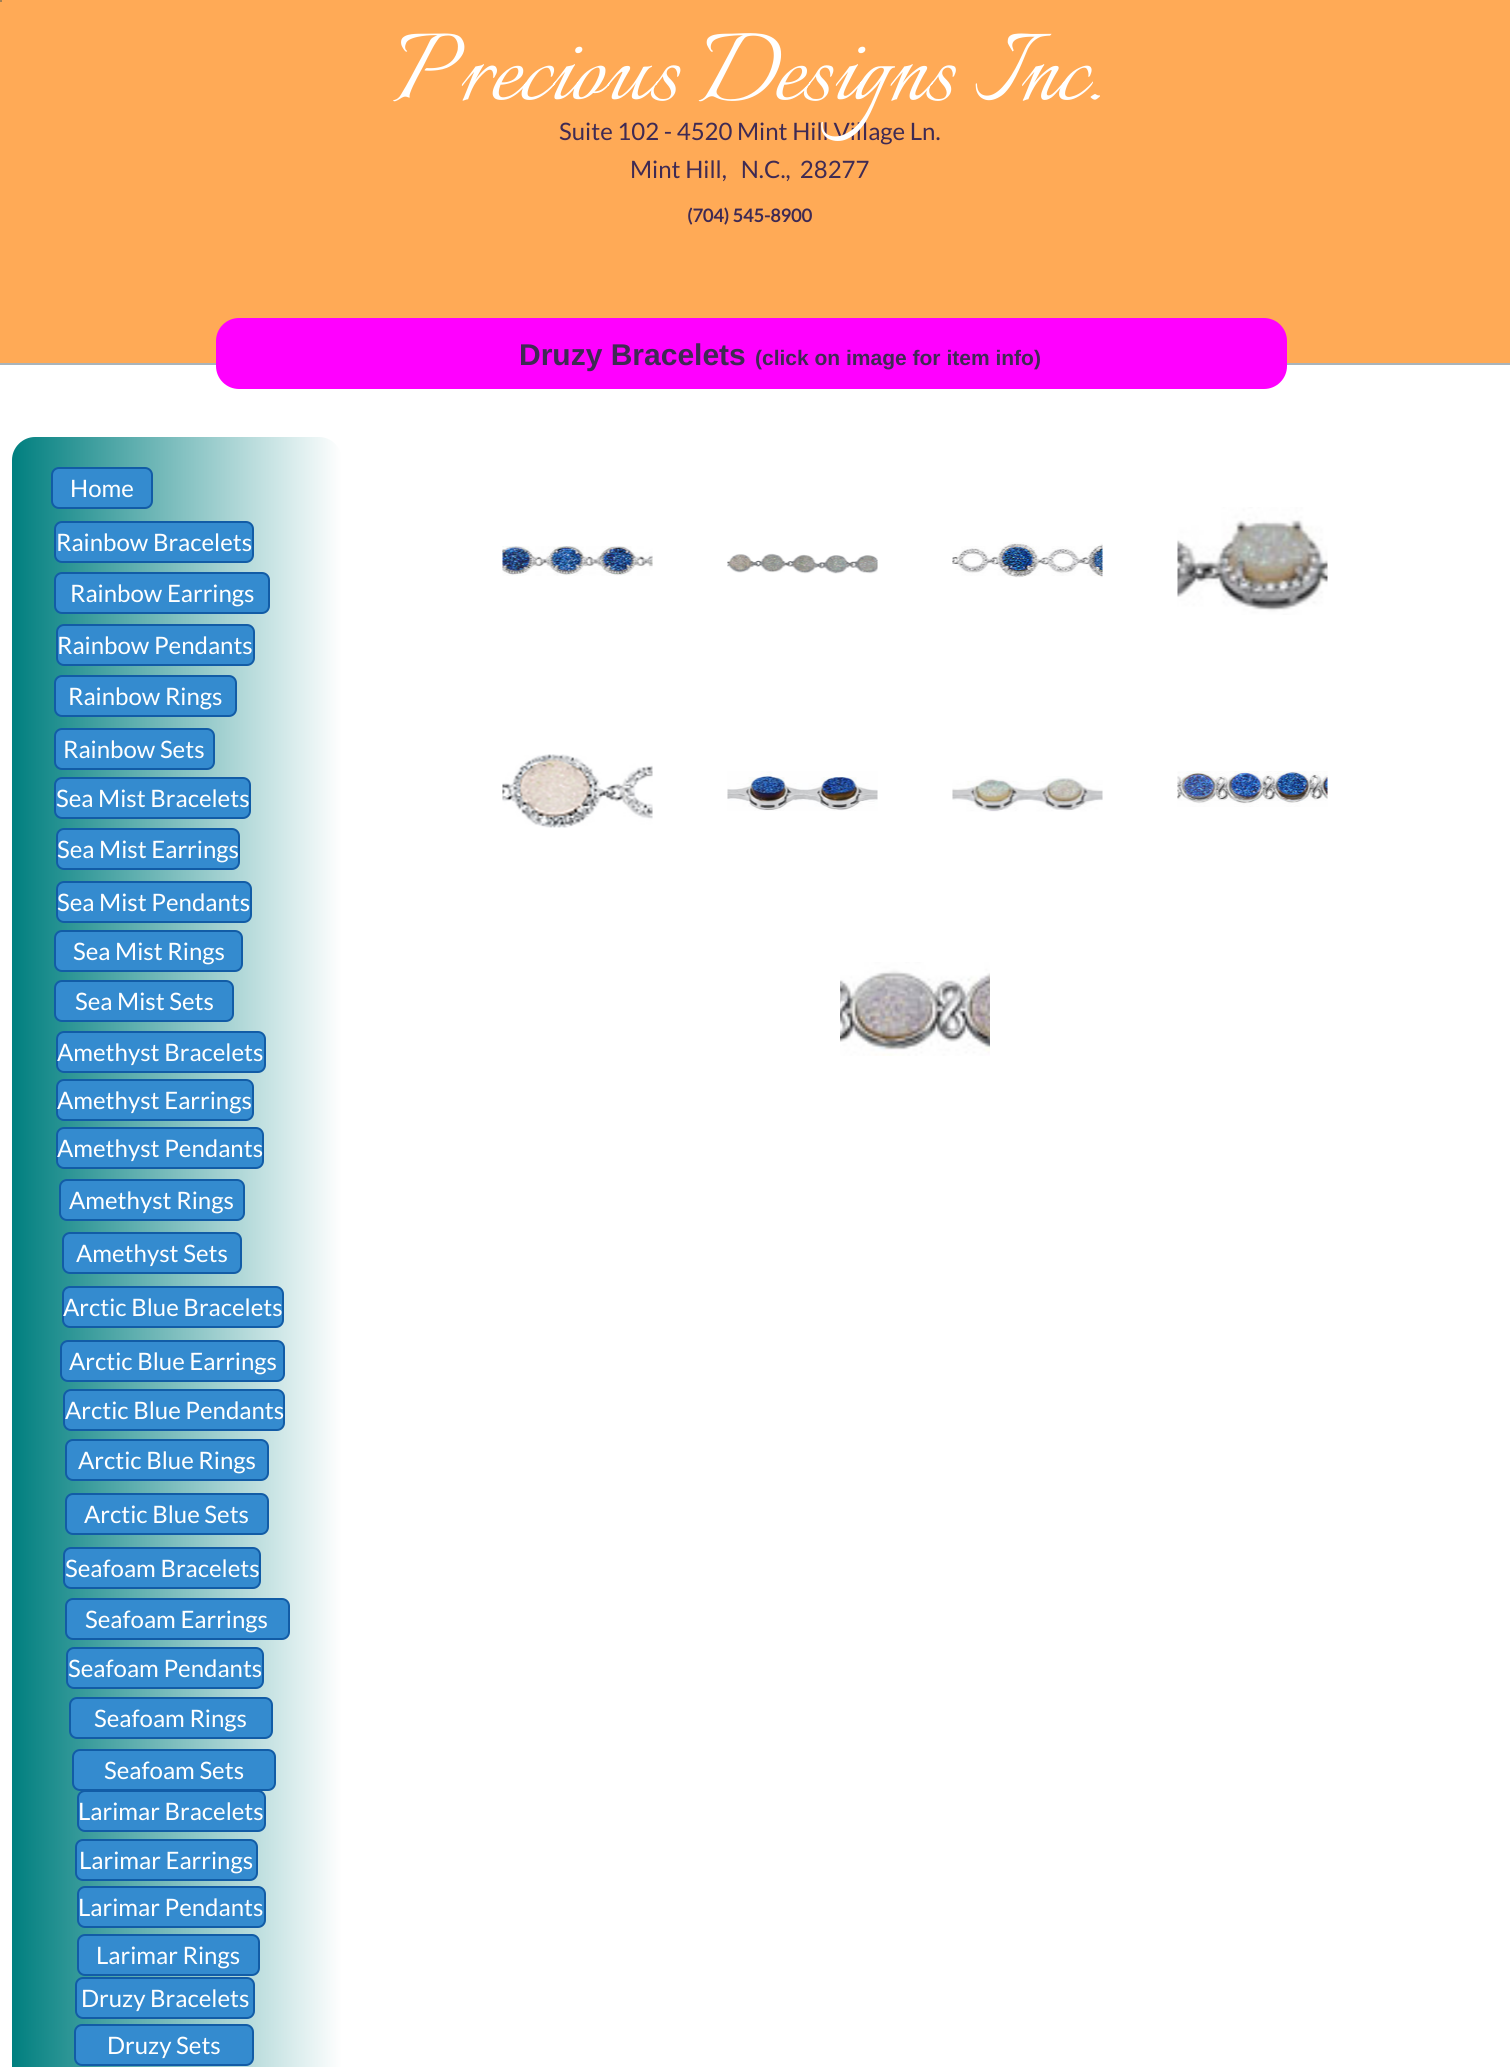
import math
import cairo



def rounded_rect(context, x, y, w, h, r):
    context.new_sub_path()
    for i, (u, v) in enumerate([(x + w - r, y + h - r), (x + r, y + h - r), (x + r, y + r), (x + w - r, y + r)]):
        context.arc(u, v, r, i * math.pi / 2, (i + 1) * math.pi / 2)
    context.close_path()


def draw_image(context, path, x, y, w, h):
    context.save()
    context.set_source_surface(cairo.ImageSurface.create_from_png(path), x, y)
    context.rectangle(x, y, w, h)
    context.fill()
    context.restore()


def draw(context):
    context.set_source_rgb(1, 1, 1)
    context.paint()
    context.set_source_rgb(1, 170 / 255, 86 / 255)
    context.rectangle(-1, -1, 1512, 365)
    context.fill_preserve()
    context.set_source_rgb(169 / 255, 180 / 255, 187 / 255)
    context.stroke()
    context.set_source_rgb(163 / 255, 129 / 255, 84 / 255)
    context.rectangle(0, 0, 2, 2)
    context.fill()
    context.set_source_rgb(1, 0, 1)
    rounded_rect(context, 216, 318, 1071, 71, 23)
    context.fill()
    gradient = cairo.LinearGradient(12, 1532, 342, 1532)
    gradient.add_color_stop_rgba(0, 0, 127 / 255, 127 / 255, 1)
    gradient.add_color_stop_rgba(1, 1, 1, 1, 1)
    context.set_source(gradient)
    context.new_path()
    context.move_to(35, 437)
    context.line_to(319, 437)
    context.curve_to(331.5, 437, 342, 447.5, 342, 460)
    context.line_to(342, 2067)
    context.line_to(12, 2067)
    context.line_to(12, 460)
    context.curve_to(12, 447.5, 22.5, 437, 35, 437)
    context.close_path()
    context.fill()
    context.set_source_rgb(52 / 255, 139 / 255, 207 / 255)
    rounded_rect(context, 52, 468, 100, 40, 7)
    context.fill_preserve()
    context.set_source_rgb(18 / 255, 92 / 255, 166 / 255)
    context.stroke()
    context.set_source_rgb(52 / 255, 139 / 255, 207 / 255)
    rounded_rect(context, 55, 522, 198, 40, 7)
    context.fill_preserve()
    context.set_source_rgb(18 / 255, 92 / 255, 166 / 255)
    context.stroke()
    draw_image(context, "images/1.png", 502, 546, 151, 30)
    draw_image(context, "images/2.png", 727, 553, 151, 21)
    draw_image(context, "images/3.png", 952, 542, 151, 36)
    draw_image(context, "images/4.png", 1177, 507, 151, 108)
    draw_image(context, "images/5.png", 502, 754, 151, 74)
    draw_image(context, "images/6.png", 727, 771, 151, 40)
    draw_image(context, "images/7.png", 952, 776, 151, 36)
    draw_image(context, "images/8.png", 1177, 771, 151, 36)
    draw_image(context, "images/9.png", 840, 962, 150, 94)
    context.set_source_rgb(52 / 255, 139 / 255, 207 / 255)
    rounded_rect(context, 55, 573, 214, 40, 7)
    context.fill_preserve()
    context.set_source_rgb(18 / 255, 92 / 255, 166 / 255)
    context.stroke()
    context.set_source_rgb(52 / 255, 139 / 255, 207 / 255)
    rounded_rect(context, 57, 625, 197, 40, 7)
    context.fill_preserve()
    context.set_source_rgb(18 / 255, 92 / 255, 166 / 255)
    context.stroke()
    context.set_source_rgb(52 / 255, 139 / 255, 207 / 255)
    rounded_rect(context, 55, 676, 181, 40, 7)
    context.fill_preserve()
    context.set_source_rgb(18 / 255, 92 / 255, 166 / 255)
    context.stroke()
    context.set_source_rgb(52 / 255, 139 / 255, 207 / 255)
    rounded_rect(context, 55, 729, 159, 40, 7)
    context.fill_preserve()
    context.set_source_rgb(18 / 255, 92 / 255, 166 / 255)
    context.stroke()
    context.set_source_rgb(52 / 255, 139 / 255, 207 / 255)
    rounded_rect(context, 55, 778, 195, 40, 7)
    context.fill_preserve()
    context.set_source_rgb(18 / 255, 92 / 255, 166 / 255)
    context.stroke()
    context.set_source_rgb(52 / 255, 139 / 255, 207 / 255)
    rounded_rect(context, 57, 829, 182, 40, 7)
    context.fill_preserve()
    context.set_source_rgb(18 / 255, 92 / 255, 166 / 255)
    context.stroke()
    context.set_source_rgb(52 / 255, 139 / 255, 207 / 255)
    rounded_rect(context, 57, 882, 194, 40, 7)
    context.fill_preserve()
    context.set_source_rgb(18 / 255, 92 / 255, 166 / 255)
    context.stroke()
    context.set_source_rgb(52 / 255, 139 / 255, 207 / 255)
    rounded_rect(context, 55, 931, 187, 40, 7)
    context.fill_preserve()
    context.set_source_rgb(18 / 255, 92 / 255, 166 / 255)
    context.stroke()
    context.set_source_rgb(52 / 255, 139 / 255, 207 / 255)
    rounded_rect(context, 55, 981, 178, 40, 7)
    context.fill_preserve()
    context.set_source_rgb(18 / 255, 92 / 255, 166 / 255)
    context.stroke()
    context.set_source_rgb(52 / 255, 139 / 255, 207 / 255)
    rounded_rect(context, 57, 1032, 208, 40, 7)
    context.fill_preserve()
    context.set_source_rgb(18 / 255, 92 / 255, 166 / 255)
    context.stroke()
    context.set_source_rgb(52 / 255, 139 / 255, 207 / 255)
    rounded_rect(context, 57, 1080, 196, 40, 7)
    context.fill_preserve()
    context.set_source_rgb(18 / 255, 92 / 255, 166 / 255)
    context.stroke()
    context.set_source_rgb(52 / 255, 139 / 255, 207 / 255)
    rounded_rect(context, 57, 1128, 206, 40, 7)
    context.fill_preserve()
    context.set_source_rgb(18 / 255, 92 / 255, 166 / 255)
    context.stroke()
    context.set_source_rgb(52 / 255, 139 / 255, 207 / 255)
    rounded_rect(context, 60, 1180, 184, 40, 7)
    context.fill_preserve()
    context.set_source_rgb(18 / 255, 92 / 255, 166 / 255)
    context.stroke()
    context.set_source_rgb(52 / 255, 139 / 255, 207 / 255)
    rounded_rect(context, 63, 1233, 178, 40, 7)
    context.fill_preserve()
    context.set_source_rgb(18 / 255, 92 / 255, 166 / 255)
    context.stroke()
    context.set_source_rgb(52 / 255, 139 / 255, 207 / 255)
    rounded_rect(context, 63, 1287, 220, 40, 7)
    context.fill_preserve()
    context.set_source_rgb(18 / 255, 92 / 255, 166 / 255)
    context.stroke()
    context.set_source_rgb(52 / 255, 139 / 255, 207 / 255)
    rounded_rect(context, 61, 1341, 223, 40, 7)
    context.fill_preserve()
    context.set_source_rgb(18 / 255, 92 / 255, 166 / 255)
    context.stroke()
    context.set_source_rgb(52 / 255, 139 / 255, 207 / 255)
    rounded_rect(context, 64, 1390, 220, 40, 7)
    context.fill_preserve()
    context.set_source_rgb(18 / 255, 92 / 255, 166 / 255)
    context.stroke()
    context.set_source_rgb(52 / 255, 139 / 255, 207 / 255)
    rounded_rect(context, 66, 1440, 202, 40, 7)
    context.fill_preserve()
    context.set_source_rgb(18 / 255, 92 / 255, 166 / 255)
    context.stroke()
    context.set_source_rgb(52 / 255, 139 / 255, 207 / 255)
    rounded_rect(context, 66, 1494, 202, 40, 7)
    context.fill_preserve()
    context.set_source_rgb(18 / 255, 92 / 255, 166 / 255)
    context.stroke()
    context.set_source_rgb(52 / 255, 139 / 255, 207 / 255)
    rounded_rect(context, 64, 1548, 196, 40, 7)
    context.fill_preserve()
    context.set_source_rgb(18 / 255, 92 / 255, 166 / 255)
    context.stroke()
    context.set_source_rgb(52 / 255, 139 / 255, 207 / 255)
    rounded_rect(context, 66, 1599, 223, 40, 7)
    context.fill_preserve()
    context.set_source_rgb(18 / 255, 92 / 255, 166 / 255)
    context.stroke()
    context.set_source_rgb(52 / 255, 139 / 255, 207 / 255)
    rounded_rect(context, 67, 1648, 196, 40, 7)
    context.fill_preserve()
    context.set_source_rgb(18 / 255, 92 / 255, 166 / 255)
    context.stroke()
    context.set_source_rgb(52 / 255, 139 / 255, 207 / 255)
    rounded_rect(context, 70, 1698, 202, 40, 7)
    context.fill_preserve()
    context.set_source_rgb(18 / 255, 92 / 255, 166 / 255)
    context.stroke()
    context.set_source_rgb(52 / 255, 139 / 255, 207 / 255)
    rounded_rect(context, 78, 1791, 187, 40, 7)
    context.fill_preserve()
    context.set_source_rgb(18 / 255, 92 / 255, 166 / 255)
    context.stroke()
    context.set_source_rgb(52 / 255, 139 / 255, 207 / 255)
    rounded_rect(context, 73, 1750, 202, 40, 7)
    context.fill_preserve()
    context.set_source_rgb(18 / 255, 92 / 255, 166 / 255)
    context.stroke()
    context.set_source_rgb(52 / 255, 139 / 255, 207 / 255)
    rounded_rect(context, 76, 1840, 181, 40, 7)
    context.fill_preserve()
    context.set_source_rgb(18 / 255, 92 / 255, 166 / 255)
    context.stroke()
    context.set_source_rgb(52 / 255, 139 / 255, 207 / 255)
    rounded_rect(context, 78, 1887, 187, 40, 7)
    context.fill_preserve()
    context.set_source_rgb(18 / 255, 92 / 255, 166 / 255)
    context.stroke()
    context.set_source_rgb(52 / 255, 139 / 255, 207 / 255)
    rounded_rect(context, 78, 1935, 181, 40, 7)
    context.fill_preserve()
    context.set_source_rgb(18 / 255, 92 / 255, 166 / 255)
    context.stroke()
    context.set_source_rgb(52 / 255, 139 / 255, 207 / 255)
    rounded_rect(context, 76, 1978, 178, 40, 7)
    context.fill_preserve()
    context.set_source_rgb(18 / 255, 92 / 255, 166 / 255)
    context.stroke()
    context.set_source_rgb(52 / 255, 139 / 255, 207 / 255)
    rounded_rect(context, 75, 2025, 178, 40, 7)
    context.fill_preserve()
    context.set_source_rgb(18 / 255, 92 / 255, 166 / 255)
    context.stroke()
    context.select_font_face("Lato")
    context.set_font_size(24)
    context.set_source_rgb(63 / 255, 42 / 255, 83 / 255)
    context.move_to(559, 140)
    context.show_text("Suite 102 - 4520 Mint Hill Village Ln.")
    context.select_font_face("Italianno")
    context.set_font_size(120)
    context.set_source_rgb(1, 1, 1)
    context.move_to(393, 99)
    context.show_text("Precious Designs Inc.")
    context.select_font_face("Lato")
    context.set_font_size(24)
    context.set_source_rgb(63 / 255, 42 / 255, 83 / 255)
    context.move_to(630, 178)
    context.show_text("Mint Hill,   N.C.,  28277")
    context.select_font_face("Lato", cairo.FontSlant.NORMAL, cairo.FontWeight.BOLD)
    context.set_font_size(18)
    context.move_to(687, 222)
    context.show_text("(704) 545-8900")
    context.select_font_face("Liberation Sans", cairo.FontSlant.NORMAL, cairo.FontWeight.BOLD)
    context.set_font_size(30)
    context.move_to(519, 365)
    context.show_text("Druzy Bracelets")
    context.set_font_size(21)
    context.move_to(755, 365)
    context.show_text("(click on image for item info)")
    context.select_font_face("Lato")
    context.set_font_size(24)
    context.set_source_rgb(1, 1, 1)
    context.move_to(70, 497)
    context.show_text("Home")
    context.move_to(56, 551)
    context.show_text("Rainbow Bracelets")
    context.move_to(70, 602)
    context.show_text("Rainbow Earrings")
    context.move_to(57, 654)
    context.show_text("Rainbow Pendants")
    context.move_to(68, 705)
    context.show_text("Rainbow Rings")
    context.move_to(63, 758)
    context.show_text("Rainbow Sets")
    context.move_to(56, 807)
    context.show_text("Sea Mist Bracelets")
    context.move_to(57, 858)
    context.show_text("Sea Mist Earrings")
    context.move_to(57, 911)
    context.show_text("Sea Mist Pendants")
    context.move_to(73, 960)
    context.show_text("Sea Mist Rings")
    context.move_to(75, 1010)
    context.show_text("Sea Mist Sets")
    context.move_to(57, 1061)
    context.show_text("Amethyst Bracelets")
    context.move_to(57, 1109)
    context.show_text("Amethyst Earrings")
    context.move_to(57, 1157)
    context.show_text("Amethyst Pendants")
    context.move_to(69, 1209)
    context.show_text("Amethyst Rings")
    context.move_to(76, 1262)
    context.show_text("Amethyst Sets")
    context.move_to(63, 1316)
    context.show_text("Arctic Blue Bracelets")
    context.move_to(69, 1370)
    context.show_text("Arctic Blue Earrings")
    context.move_to(65, 1419)
    context.show_text("Arctic Blue Pendants")
    context.move_to(78, 1469)
    context.show_text("Arctic Blue Rings")
    context.move_to(84, 1523)
    context.show_text("Arctic Blue Sets")
    context.move_to(65, 1577)
    context.show_text("Seafoam Bracelets")
    context.move_to(85, 1628)
    context.show_text("Seafoam Earrings")
    context.move_to(68, 1677)
    context.show_text("Seafoam Pendants")
    context.move_to(94, 1727)
    context.show_text("Seafoam Rings")
    context.move_to(104, 1779)
    context.show_text("Seafoam Sets")
    context.move_to(78, 1820)
    context.show_text("Larimar Bracelets")
    context.move_to(79, 1869)
    context.show_text("Larimar Earrings")
    context.move_to(78, 1916)
    context.show_text("Larimar Pendants")
    context.move_to(96, 1964)
    context.show_text("Larimar Rings")
    context.move_to(81, 2007)
    context.show_text("Druzy Bracelets")
    context.move_to(107, 2054)
    context.show_text("Druzy Sets")


surface = cairo.ImageSurface(cairo.Format.RGB24, 1510, 2067)
context = cairo.Context(surface)
options = cairo.FontOptions()
options.set_hint_metrics(cairo.HintMetrics.OFF)
options.set_hint_style(cairo.HintStyle.NONE)
context.set_font_options(options)
context.set_miter_limit(4)
draw(context)
surface.write_to_png("out.png")
